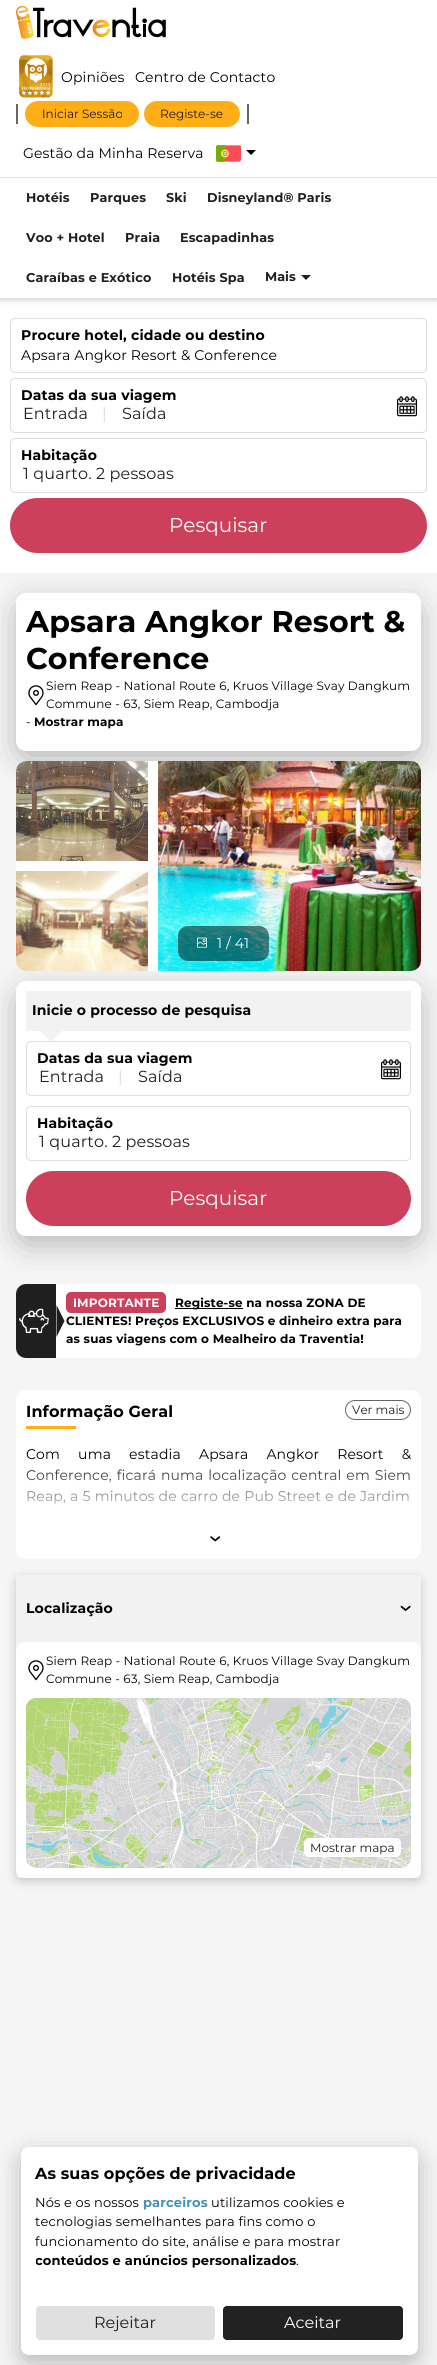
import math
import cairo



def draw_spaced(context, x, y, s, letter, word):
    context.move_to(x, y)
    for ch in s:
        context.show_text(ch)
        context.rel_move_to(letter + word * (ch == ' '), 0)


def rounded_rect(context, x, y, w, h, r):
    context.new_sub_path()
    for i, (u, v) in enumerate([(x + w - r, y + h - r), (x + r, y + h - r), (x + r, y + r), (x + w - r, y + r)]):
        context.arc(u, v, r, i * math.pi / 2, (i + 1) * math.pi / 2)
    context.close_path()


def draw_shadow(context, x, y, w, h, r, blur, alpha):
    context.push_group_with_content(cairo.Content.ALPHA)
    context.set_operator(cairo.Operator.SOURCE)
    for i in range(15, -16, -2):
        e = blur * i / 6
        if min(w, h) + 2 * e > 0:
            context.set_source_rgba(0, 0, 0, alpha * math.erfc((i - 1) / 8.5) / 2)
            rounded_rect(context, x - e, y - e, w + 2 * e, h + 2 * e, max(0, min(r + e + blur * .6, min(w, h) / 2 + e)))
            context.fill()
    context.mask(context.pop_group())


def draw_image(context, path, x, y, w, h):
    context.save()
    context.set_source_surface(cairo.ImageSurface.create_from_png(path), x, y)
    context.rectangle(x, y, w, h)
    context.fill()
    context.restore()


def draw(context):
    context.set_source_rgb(245 / 255, 245 / 255, 245 / 255)
    context.paint()
    context.set_source_rgb(1, 1, 1)
    context.rectangle(0, 298, 437, 275)
    context.fill()
    context.set_source_rgb(0, 0, 0)
    draw_shadow(context, 0, 2, 437, 298, 0, 3, 0.2)
    context.set_source_rgb(1, 1, 1)
    context.rectangle(0, 0, 437, 298)
    context.fill()
    draw_image(context, "images/1.png", 16, 5, 150, 35)
    draw_image(context, "images/2.png", 19, 54, 34, 44)
    context.set_source_rgb(102 / 255, 102 / 255, 102 / 255)
    context.rectangle(16, 104, 2, 20)
    context.fill()
    context.set_source_rgb(1, 174 / 255, 23 / 255)
    rounded_rect(context, 25, 101, 114, 26, 13)
    context.fill()
    rounded_rect(context, 144, 101, 96, 26, 13)
    context.fill()
    context.set_source_rgb(102 / 255, 102 / 255, 102 / 255)
    context.rectangle(247, 104, 2, 20)
    context.fill()
    draw_image(context, "images/3.png", 216, 145, 25, 17)
    context.set_source_rgb(0, 0, 0)
    context.new_path()
    context.move_to(251, 155)
    context.line_to(246, 150)
    context.line_to(256, 150)
    context.close_path()
    context.fill()
    context.set_source_rgb(221 / 255, 221 / 255, 221 / 255)
    context.rectangle(0, 177, 437, 1)
    context.fill()
    context.set_source_rgb(31 / 255, 31 / 255, 31 / 255)
    context.new_path()
    context.move_to(306, 280)
    context.line_to(301, 275)
    context.line_to(311, 275)
    context.close_path()
    context.fill()
    rounded_rect(context, 10.5, 318.5, 416, 54, 4.5)
    context.set_source_rgb(221 / 255, 221 / 255, 221 / 255)
    context.set_line_width(1)
    context.stroke()
    rounded_rect(context, 10.5, 378.5, 416, 54, 4.5)
    context.stroke()
    draw_image(context, "images/4.png", 397, 396, 20, 21)
    rounded_rect(context, 10.5, 438.5, 416, 54, 4.5)
    context.stroke()
    context.set_source_rgb(205 / 255, 64 / 255, 91 / 255)
    rounded_rect(context, 10, 498, 417, 55, 27.5)
    context.fill()
    context.set_source_rgb(0, 0, 0)
    draw_shadow(context, 22, 608, 393, 146, 4, 17.5, 0.33)
    context.set_source_rgb(1, 1, 1)
    rounded_rect(context, 16, 593, 405, 158, 10)
    context.fill()
    draw_image(context, "images/5.png", 28, 685, 16, 21)
    context.set_source_rgb(0, 0, 0)
    draw_shadow(context, 22, 996, 393, 243, 4, 17.5, 0.33)
    context.set_source_rgb(1, 1, 1)
    rounded_rect(context, 16, 761, 405, 210, 10)
    context.fill()
    draw_image(context, "images/6.png", 16, 761, 132, 100)
    draw_image(context, "images/7.png", 16, 871, 132, 100)
    draw_image(context, "images/8.png", 158, 761, 263, 210)
    context.set_source_rgba(0, 0, 0, 0.5)
    rounded_rect(context, 178, 926, 91, 35, 10)
    context.fill()
    draw_image(context, "images/9.png", 197, 937, 10, 11)
    context.set_source_rgb(1, 1, 1)
    rounded_rect(context, 16, 981, 405, 255, 10)
    context.fill()
    context.set_source_rgb(242 / 255, 242 / 255, 242 / 255)
    context.rectangle(26, 991, 385, 40)
    context.fill()
    context.new_path()
    context.move_to(36, 1027)
    context.line_to(66, 1027)
    context.line_to(51, 1042)
    context.close_path()
    context.fill()
    context.set_source_rgb(1, 1, 1)
    rounded_rect(context, 26.5, 1041.5, 384, 54, 4.5)
    context.fill_preserve()
    context.set_source_rgb(221 / 255, 221 / 255, 221 / 255)
    context.stroke()
    draw_image(context, "images/4.png", 381, 1059, 20, 21)
    rounded_rect(context, 26.5, 1106.5, 384, 54, 4.5)
    context.stroke()
    context.set_source_rgb(205 / 255, 64 / 255, 91 / 255)
    rounded_rect(context, 26, 1171, 385, 55, 27.5)
    context.fill()
    context.set_source_rgb(1, 1, 1)
    rounded_rect(context, 16, 1284, 405, 74, 10)
    context.fill()
    context.set_source_rgb(31 / 255, 31 / 255, 31 / 255)
    context.new_path()
    context.move_to(26, 1284)
    context.line_to(56, 1284)
    context.line_to(56, 1358)
    context.line_to(26, 1358)
    context.curve_to(20.5, 1358, 16, 1353.5, 16, 1348)
    context.line_to(16, 1294)
    context.curve_to(16, 1288.5, 20.5, 1284, 26, 1284)
    context.close_path()
    context.fill()
    draw_image(context, "images/10.png", 19, 1308, 30, 26)
    context.new_path()
    context.move_to(56.5, 1337)
    context.line_to(56.5, 1305)
    context.line_to(64.5, 1321)
    context.close_path()
    context.fill()
    context.set_source_rgb(205 / 255, 64 / 255, 91 / 255)
    rounded_rect(context, 66, 1292, 100, 21, 5)
    context.fill()
    context.set_source_rgb(0, 0, 0)
    context.rectangle(175, 1308, 68, 1)
    context.fill()
    context.set_source_rgb(1, 1, 1)
    rounded_rect(context, 16, 1390, 405, 169, 10)
    context.fill()
    context.set_source_rgb(1, 174 / 255, 23 / 255)
    context.rectangle(26, 1426, 50, 3)
    context.fill()
    rounded_rect(context, 345.5, 1400.5, 65, 19, 9.5)
    context.set_source_rgb(102 / 255, 102 / 255, 102 / 255)
    context.stroke()
    draw_image(context, "images/11.png", 210, 1536, 11, 6)
    context.save()
    context.set_fill_rule(cairo.FillRule.EVEN_ODD)
    context.new_path()
    context.move_to(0, 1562)
    context.line_to(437, 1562)
    context.line_to(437, 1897)
    context.line_to(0, 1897)
    context.close_path()
    context.move_to(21, 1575)
    context.line_to(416, 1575)
    context.curve_to(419, 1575, 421, 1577, 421, 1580)
    context.line_to(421, 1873)
    context.curve_to(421, 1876, 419, 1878, 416, 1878)
    context.line_to(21, 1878)
    context.curve_to(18, 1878, 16, 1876, 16, 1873)
    context.line_to(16, 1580)
    context.curve_to(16, 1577, 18, 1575, 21, 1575)
    context.close_path()
    context.clip()
    context.set_source_rgb(0, 0, 0)
    draw_shadow(context, 16, 1578, 405, 303, 5, 5, 0.2)
    context.restore()
    context.set_source_rgb(242 / 255, 242 / 255, 242 / 255)
    context.new_path()
    context.move_to(21, 1575)
    context.line_to(416, 1575)
    context.curve_to(419, 1575, 421, 1577, 421, 1580)
    context.line_to(421, 1642)
    context.line_to(16, 1642)
    context.line_to(16, 1580)
    context.curve_to(16, 1577, 18, 1575, 21, 1575)
    context.close_path()
    context.fill()
    draw_image(context, "images/12.png", 400, 1605, 11, 6)
    context.set_source_rgb(1, 1, 1)
    rounded_rect(context, 16, 1642, 405, 236, 10)
    context.fill()
    draw_image(context, "images/5.png", 28, 1660, 16, 21)
    draw_image(context, "images/13.png", 26, 1698, 385, 170)
    rounded_rect(context, 304, 1838, 97, 19, 5)
    context.fill()
    context.set_source_rgb(0, 0, 0)
    draw_shadow(context, 21, 2155, 397, 208, 8, 12, 0.25)
    context.set_source_rgb(1, 1, 1)
    rounded_rect(context, 21, 2147, 397, 208, 8)
    context.fill()
    context.set_source_rgb(224 / 255, 224 / 255, 224 / 255)
    rounded_rect(context, 36, 2306, 179, 34, 4)
    context.fill()
    context.set_source_rgb(34 / 255, 34 / 255, 34 / 255)
    rounded_rect(context, 223, 2306, 180, 34, 4)
    context.fill()
    context.select_font_face("Montserrat")
    context.set_font_size(14)
    context.set_source_rgb(0, 0, 0)
    draw_spaced(context, 61, 82, "Opiniões", 0.15, 0)
    draw_spaced(context, 135, 82, "Centro de Contacto", 0.15, 0)
    context.set_font_size(12)
    context.set_source_rgb(31 / 255, 31 / 255, 31 / 255)
    context.move_to(42, 118)
    context.show_text("Iniciar Sessão")
    context.move_to(160, 118)
    context.show_text("Registe-se")
    context.set_font_size(14)
    context.set_source_rgb(0, 0, 0)
    draw_spaced(context, 23, 158, "Gestão da Minha Reserva", 0.15, 0)
    context.select_font_face("Montserrat", cairo.FontSlant.NORMAL, cairo.FontWeight.BOLD)
    context.set_font_size(12.75)
    context.set_source_rgb(31 / 255, 31 / 255, 31 / 255)
    draw_spaced(context, 26, 202, "Hotéis", 0.15, 0)
    draw_spaced(context, 90, 202, "Parques", 0.15, 0)
    draw_spaced(context, 166, 202, "Ski", 0.15, 0)
    draw_spaced(context, 207, 202, "Disneyland® Paris", 0.15, 0)
    draw_spaced(context, 26, 242, "Voo + Hotel", 0.15, 0)
    draw_spaced(context, 125, 242, "Praia", 0.15, 0)
    draw_spaced(context, 180, 242, "Escapadinhas", 0.15, 0)
    draw_spaced(context, 26, 282, "Caraíbas e Exótico", 0.15, 0)
    draw_spaced(context, 172, 282, "Hotéis Spa", 0.15, 0)
    context.move_to(265, 281)
    context.show_text("Mais")
    context.set_font_size(14)
    context.set_source_rgb(0, 0, 0)
    draw_spaced(context, 21, 340, "Procure hotel, cidade ou destino", 0.15, 0)
    context.select_font_face("Montserrat")
    draw_spaced(context, 21, 360, "Apsara Angkor Resort & Conference", 0.15, 0)
    context.select_font_face("Montserrat", cairo.FontSlant.NORMAL, cairo.FontWeight.BOLD)
    draw_spaced(context, 21, 400, "Datas da sua viagem", 0.15, 0)
    context.select_font_face("Montserrat")
    context.set_font_size(16)
    context.set_source_rgb(31 / 255, 31 / 255, 31 / 255)
    draw_spaced(context, 23, 419, "Entrada", 0.15, 0)
    context.set_source_rgb(221 / 255, 221 / 255, 221 / 255)
    draw_spaced(context, 102, 419, "|", 0.15, 0)
    context.set_source_rgb(31 / 255, 31 / 255, 31 / 255)
    draw_spaced(context, 122, 419, "Saída", 0.15, 0)
    context.select_font_face("Montserrat", cairo.FontSlant.NORMAL, cairo.FontWeight.BOLD)
    context.set_font_size(14)
    context.set_source_rgb(0, 0, 0)
    draw_spaced(context, 21, 460, "Habitação", 0.15, 0)
    context.select_font_face("Montserrat")
    context.set_font_size(16)
    context.set_source_rgb(31 / 255, 31 / 255, 31 / 255)
    draw_spaced(context, 23, 479, "1 quarto. 2 pessoas", 0.15, 0)
    context.set_font_size(20)
    context.set_source_rgb(1, 1, 1)
    context.move_to(169, 532)
    context.show_text("Pesquisar")
    context.select_font_face("Montserrat", cairo.FontSlant.NORMAL, cairo.FontWeight.BOLD)
    context.set_font_size(30)
    context.set_source_rgb(0, 0, 0)
    draw_spaced(context, 26, 632, "Apsara Angkor Resort &", 0.15, 0)
    draw_spaced(context, 26, 669, "Conference", 0.15, 0)
    context.select_font_face("Montserrat")
    context.set_font_size(12)
    draw_spaced(context, 46, 690, "Siem Reap - National Route 6, Kruos Village Svay Dangkum", 0.15, 0)
    draw_spaced(context, 46, 708, "Commune - 63, Siem Reap, Cambodja", 0.15, 0)
    draw_spaced(context, 26, 726, "-", 0.15, 0)
    context.select_font_face("Montserrat", cairo.FontSlant.NORMAL, cairo.FontWeight.BOLD)
    draw_spaced(context, 34, 726, "Mostrar mapa", 0.15, 0)
    context.select_font_face("Montserrat")
    context.set_font_size(14)
    context.set_source_rgb(1, 1, 1)
    draw_spaced(context, 217, 948, "1 / 41", 0.15, 0)
    context.select_font_face("Montserrat", cairo.FontSlant.NORMAL, cairo.FontWeight.BOLD)
    context.set_source_rgb(0, 0, 0)
    draw_spaced(context, 32, 1015, "Inicie o processo de pesquisa", 0.15, 0)
    draw_spaced(context, 37, 1063, "Datas da sua viagem", 0.15, 0)
    context.select_font_face("Montserrat")
    context.set_font_size(16)
    context.set_source_rgb(31 / 255, 31 / 255, 31 / 255)
    draw_spaced(context, 39, 1082, "Entrada", 0.15, 0)
    context.set_source_rgb(221 / 255, 221 / 255, 221 / 255)
    draw_spaced(context, 118, 1082, "|", 0.15, 0)
    context.set_source_rgb(31 / 255, 31 / 255, 31 / 255)
    draw_spaced(context, 138, 1082, "Saída", 0.15, 0)
    context.select_font_face("Montserrat", cairo.FontSlant.NORMAL, cairo.FontWeight.BOLD)
    context.set_font_size(14)
    context.set_source_rgb(0, 0, 0)
    draw_spaced(context, 37, 1128, "Habitação", 0.15, 0)
    context.select_font_face("Montserrat")
    context.set_font_size(16)
    context.set_source_rgb(31 / 255, 31 / 255, 31 / 255)
    draw_spaced(context, 39, 1147, "1 quarto. 2 pessoas", 0.15, 0)
    context.set_font_size(20)
    context.set_source_rgb(1, 1, 1)
    context.move_to(169, 1205)
    context.show_text("Pesquisar")
    context.select_font_face("Montserrat", cairo.FontSlant.NORMAL, cairo.FontWeight.BOLD)
    context.set_font_size(12)
    draw_spaced(context, 73, 1307, "IMPORTANTE", 0.15, 0)
    context.set_source_rgb(0, 0, 0)
    draw_spaced(context, 175, 1307, "Registe-se na nossa ZONA DE", 0.15, 0)
    draw_spaced(context, 66, 1325, "CLIENTES! Preços EXCLUSIVOS e dinheiro extra para", 0.15, 0)
    draw_spaced(context, 66, 1343, "as suas viagens com o Mealheiro da Traventia!", 0.15, 0)
    context.set_font_size(16)
    draw_spaced(context, 26, 1417, "Informação Geral", 0.15, 0)
    context.select_font_face("Montserrat")
    context.set_font_size(12)
    context.set_source_rgb(31 / 255, 31 / 255, 31 / 255)
    context.move_to(352, 1414)
    context.show_text("Ver mais")
    context.set_font_size(14)
    context.set_source_rgb(0, 0, 0)
    draw_spaced(context, 26, 1459, "Com uma estadia Apsara Angkor Resort &", 0.15, 14.25)
    draw_spaced(context, 26, 1480, "Conference, ficará numa localização central em Siem", 0.15, 1)
    draw_spaced(context, 26, 1501, "Reap, a 5 minutos de carro de Pub Street e de Jardim", 0.15, 0.25)
    gradient = cairo.LinearGradient(219, 1428, 219, 1556)
    gradient.add_color_stop_rgba(0.23, 1, 1, 1, 0)
    gradient.add_color_stop_rgba(0.74, 1, 1, 1, 1)
    context.set_source(gradient)
    context.rectangle(26, 1459, 384, 45)
    context.fill()
    context.select_font_face("Montserrat", cairo.FontSlant.NORMAL, cairo.FontWeight.BOLD)
    context.set_source_rgb(0, 0, 0)
    draw_spaced(context, 26, 1613, "Localização", 0.15, 0)
    context.select_font_face("Montserrat")
    context.set_font_size(12)
    draw_spaced(context, 46, 1665, "Siem Reap - National Route 6, Kruos Village Svay Dangkum", 0.15, 0)
    draw_spaced(context, 46, 1683, "Commune - 63, Siem Reap, Cambodja", 0.15, 0)
    context.set_source_rgb(31 / 255, 31 / 255, 31 / 255)
    context.move_to(310, 1852)
    context.show_text("Mostrar mapa")
    context.select_font_face("Montserrat", cairo.FontSlant.NORMAL, cairo.FontWeight.BOLD)
    context.set_font_size(16)
    context.set_source_rgb(0, 0, 0)
    draw_spaced(context, 35, 2179, "As suas opções de privacidade", 0.15, 0)
    context.select_font_face("Montserrat")
    context.set_font_size(13)
    draw_spaced(context, 35, 2207, "Nós e os nossos", 0.15, 0)
    context.select_font_face("Montserrat", cairo.FontSlant.NORMAL, cairo.FontWeight.BOLD)
    context.set_source_rgb(68 / 255, 147 / 255, 183 / 255)
    draw_spaced(context, 143, 2207, "parceiros", 0.15, 0)
    context.select_font_face("Montserrat")
    context.set_source_rgb(0, 0, 0)
    draw_spaced(context, 211, 2207, "utilizamos cookies e", 0.15, 0)
    draw_spaced(context, 35, 2226, "tecnologias semelhantes para fins como o", 0.15, 0)
    draw_spaced(context, 35, 2246, "funcionamento do site, análise e para mostrar", 0.15, 0)
    context.save()
    context.rectangle(36, 2191, 367, 100)
    context.clip()
    context.select_font_face("Montserrat", cairo.FontSlant.NORMAL, cairo.FontWeight.BOLD)
    draw_spaced(context, 35, 2265, "conteúdos e anúncios personalizados", 0.15, 0)
    context.restore()
    draw_spaced(context, 296, 2265, ".", 0.15, 0)
    context.set_font_size(16)
    context.set_source_rgb(31 / 255, 31 / 255, 31 / 255)
    context.move_to(94, 2328)
    context.show_text("Rejeitar")
    context.set_source_rgb(1, 1, 1)
    context.move_to(284, 2328)
    context.show_text("Aceitar")


surface = cairo.ImageSurface(cairo.Format.RGB24, 437, 2365)
context = cairo.Context(surface)
options = cairo.FontOptions()
options.set_hint_metrics(cairo.HintMetrics.OFF)
options.set_hint_style(cairo.HintStyle.NONE)
context.set_font_options(options)
context.set_miter_limit(4)
draw(context)
surface.write_to_png("out.png")
